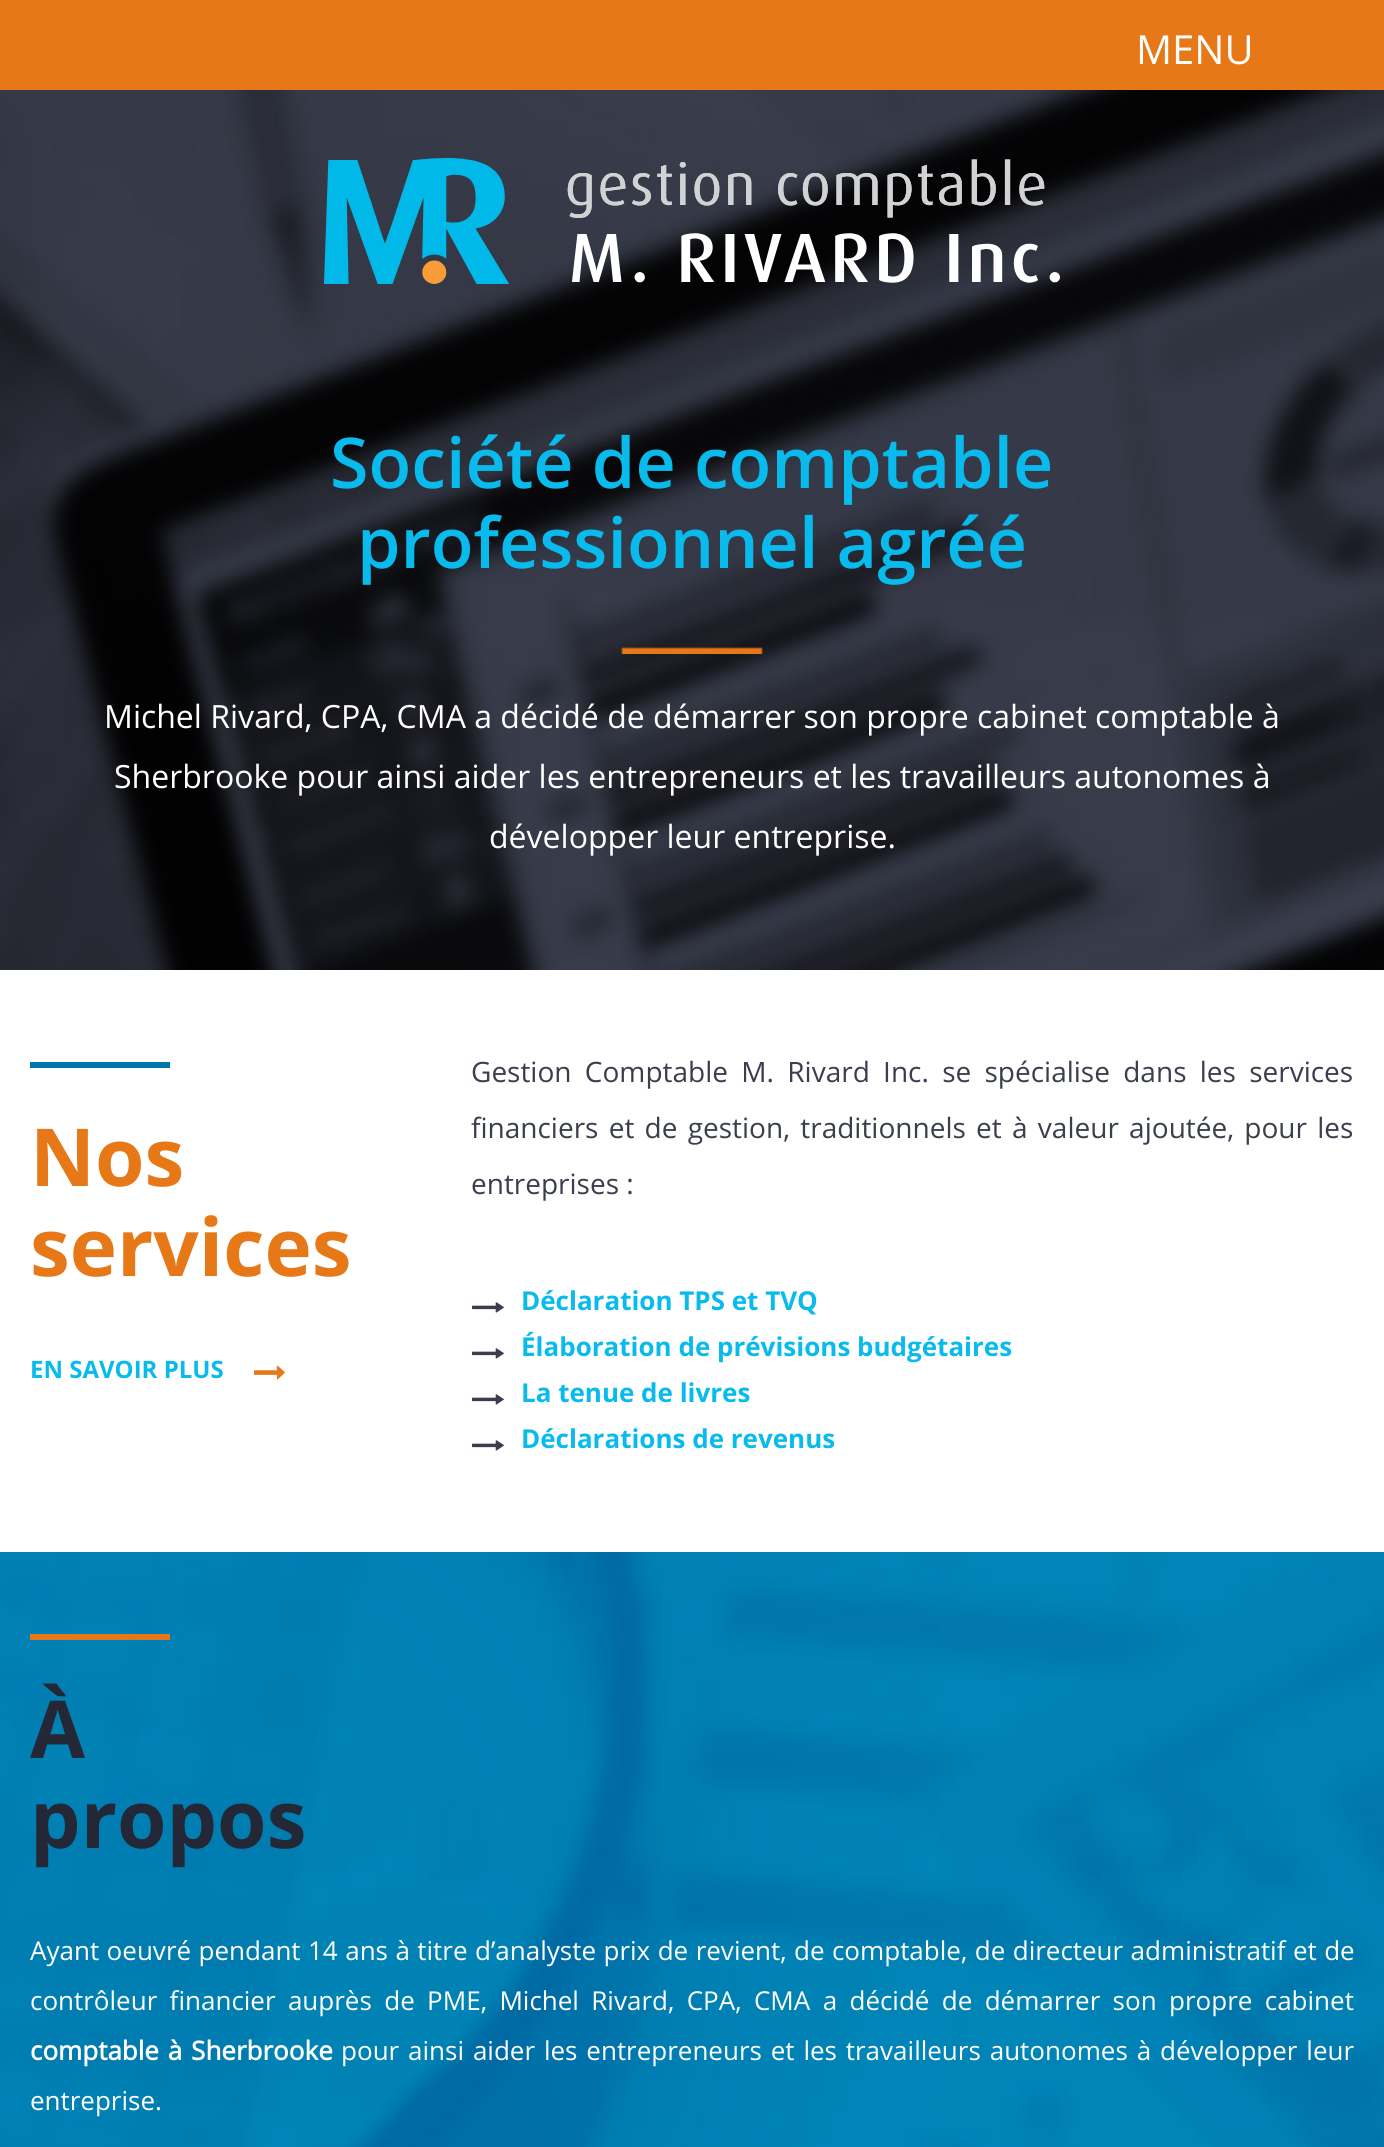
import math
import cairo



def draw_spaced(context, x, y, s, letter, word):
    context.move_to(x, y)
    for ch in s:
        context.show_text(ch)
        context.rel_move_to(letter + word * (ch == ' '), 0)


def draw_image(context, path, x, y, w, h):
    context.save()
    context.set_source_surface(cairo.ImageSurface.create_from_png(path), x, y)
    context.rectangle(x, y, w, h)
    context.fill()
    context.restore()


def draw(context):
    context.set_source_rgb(1, 1, 1)
    context.paint()
    context.set_source_rgb(231 / 255, 120 / 255, 23 / 255)
    context.rectangle(0, 0, 1384, 90)
    context.fill()
    draw_image(context, "images/2.png", 0, 90, 1384, 880)
    draw_image(context, "images/1.png", 324, 158, 736, 126)
    draw_image(context, "images/3.png", 621, 647, 142, 7)
    context.set_source_rgb(1 / 255, 118 / 255, 172 / 255)
    context.rectangle(30, 1062, 140, 6)
    context.fill()
    draw_image(context, "images/4.png", 254, 1365, 31, 15)
    draw_image(context, "images/5.png", 472, 1302, 32, 11)
    draw_image(context, "images/5.png", 472, 1348, 32, 11)
    draw_image(context, "images/5.png", 472, 1394, 32, 11)
    draw_image(context, "images/5.png", 472, 1440, 32, 11)
    draw_image(context, "images/6.png", 0, 1552, 1384, 595)
    context.set_source_rgb(230 / 255, 120 / 255, 23 / 255)
    context.rectangle(30, 1634, 140, 6)
    context.fill()
    context.select_font_face("Open Sans")
    context.set_font_size(40)
    context.set_source_rgb(1, 1, 1)
    context.move_to(1136, 64)
    context.show_text("MENU")
    context.select_font_face("Open Sans SemiBold")
    context.set_font_size(70)
    context.set_source_rgb(9 / 255, 187 / 255, 237 / 255)
    context.move_to(330, 488)
    context.show_text("Société de comptable")
    context.move_to(357, 568)
    context.show_text("professionnel agréé")
    context.select_font_face("Open Sans")
    context.set_font_size(32)
    context.set_source_rgb(1, 1, 1)
    context.move_to(104, 728)
    context.show_text("Michel Rivard, CPA, CMA a décidé de démarrer son propre cabinet comptable à")
    context.move_to(114, 788)
    context.show_text("Sherbrooke pour ainsi aider les entrepreneurs et les travailleurs autonomes à")
    context.move_to(489, 848)
    context.show_text("développer leur entreprise.")
    context.select_font_face("Open Sans", cairo.FontSlant.NORMAL, cairo.FontWeight.BOLD)
    context.set_font_size(80)
    context.set_source_rgb(231 / 255, 120 / 255, 23 / 255)
    context.move_to(30, 1186)
    context.show_text("Nos")
    context.move_to(30, 1276)
    context.show_text("services")
    context.set_font_size(24)
    context.set_source_rgb(9 / 255, 187 / 255, 237 / 255)
    context.move_to(30, 1378)
    context.show_text("EN SAVOIR PLUS")
    context.select_font_face("Open Sans")
    context.set_font_size(28)
    context.set_source_rgb(58 / 255, 62 / 255, 77 / 255)
    draw_spaced(context, 471, 1082, "Gestion Comptable M. Rivard Inc. se spécialise dans les services", 0, 6)
    draw_spaced(context, 471, 1138, "financiers et de gestion, traditionnels et à valeur ajoutée, pour les", 0, 3)
    context.move_to(471, 1194)
    context.show_text("entreprises :")
    context.select_font_face("Open Sans", cairo.FontSlant.NORMAL, cairo.FontWeight.BOLD)
    context.set_font_size(26)
    context.set_source_rgb(9 / 255, 187 / 255, 237 / 255)
    context.move_to(521, 1310)
    context.show_text("Déclaration TPS et TVQ")
    context.move_to(521, 1356)
    context.show_text("Élaboration de prévisions budgétaires")
    context.move_to(521, 1402)
    context.show_text("La tenue de livres")
    context.move_to(521, 1448)
    context.show_text("Déclarations de revenus")
    context.set_font_size(80)
    context.set_source_rgb(35 / 255, 39 / 255, 54 / 255)
    context.move_to(30, 1758)
    context.show_text("À")
    context.move_to(30, 1848)
    context.show_text("propos")
    context.select_font_face("Open Sans")
    context.set_font_size(26)
    context.set_source_rgb(1, 1, 1)
    draw_spaced(context, 30, 1960, "Ayant oeuvré pendant 14 ans à titre d’analyste prix de revient, de comptable, de directeur administratif et de", 0, 0.7)
    draw_spaced(context, 30, 2010, "contrôleur financier auprès de PME, Michel Rivard, CPA, CMA a décidé de démarrer son propre cabinet", 0, 5.6)
    context.select_font_face("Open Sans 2", cairo.FontSlant.NORMAL, cairo.FontWeight.BOLD)
    draw_spaced(context, 30, 2060, "comptable à Sherbrooke", 0, 2.1)
    context.select_font_face("Open Sans")
    draw_spaced(context, 341, 2060, "pour ainsi aider les entrepreneurs et les travailleurs autonomes à développer leur", 0, 2.1)
    context.move_to(30, 2110)
    context.show_text("entreprise.")


surface = cairo.ImageSurface(cairo.Format.RGB24, 1384, 2147)
context = cairo.Context(surface)
options = cairo.FontOptions()
options.set_hint_metrics(cairo.HintMetrics.OFF)
options.set_hint_style(cairo.HintStyle.NONE)
context.set_font_options(options)
context.set_miter_limit(4)
draw(context)
surface.write_to_png("out.png")
